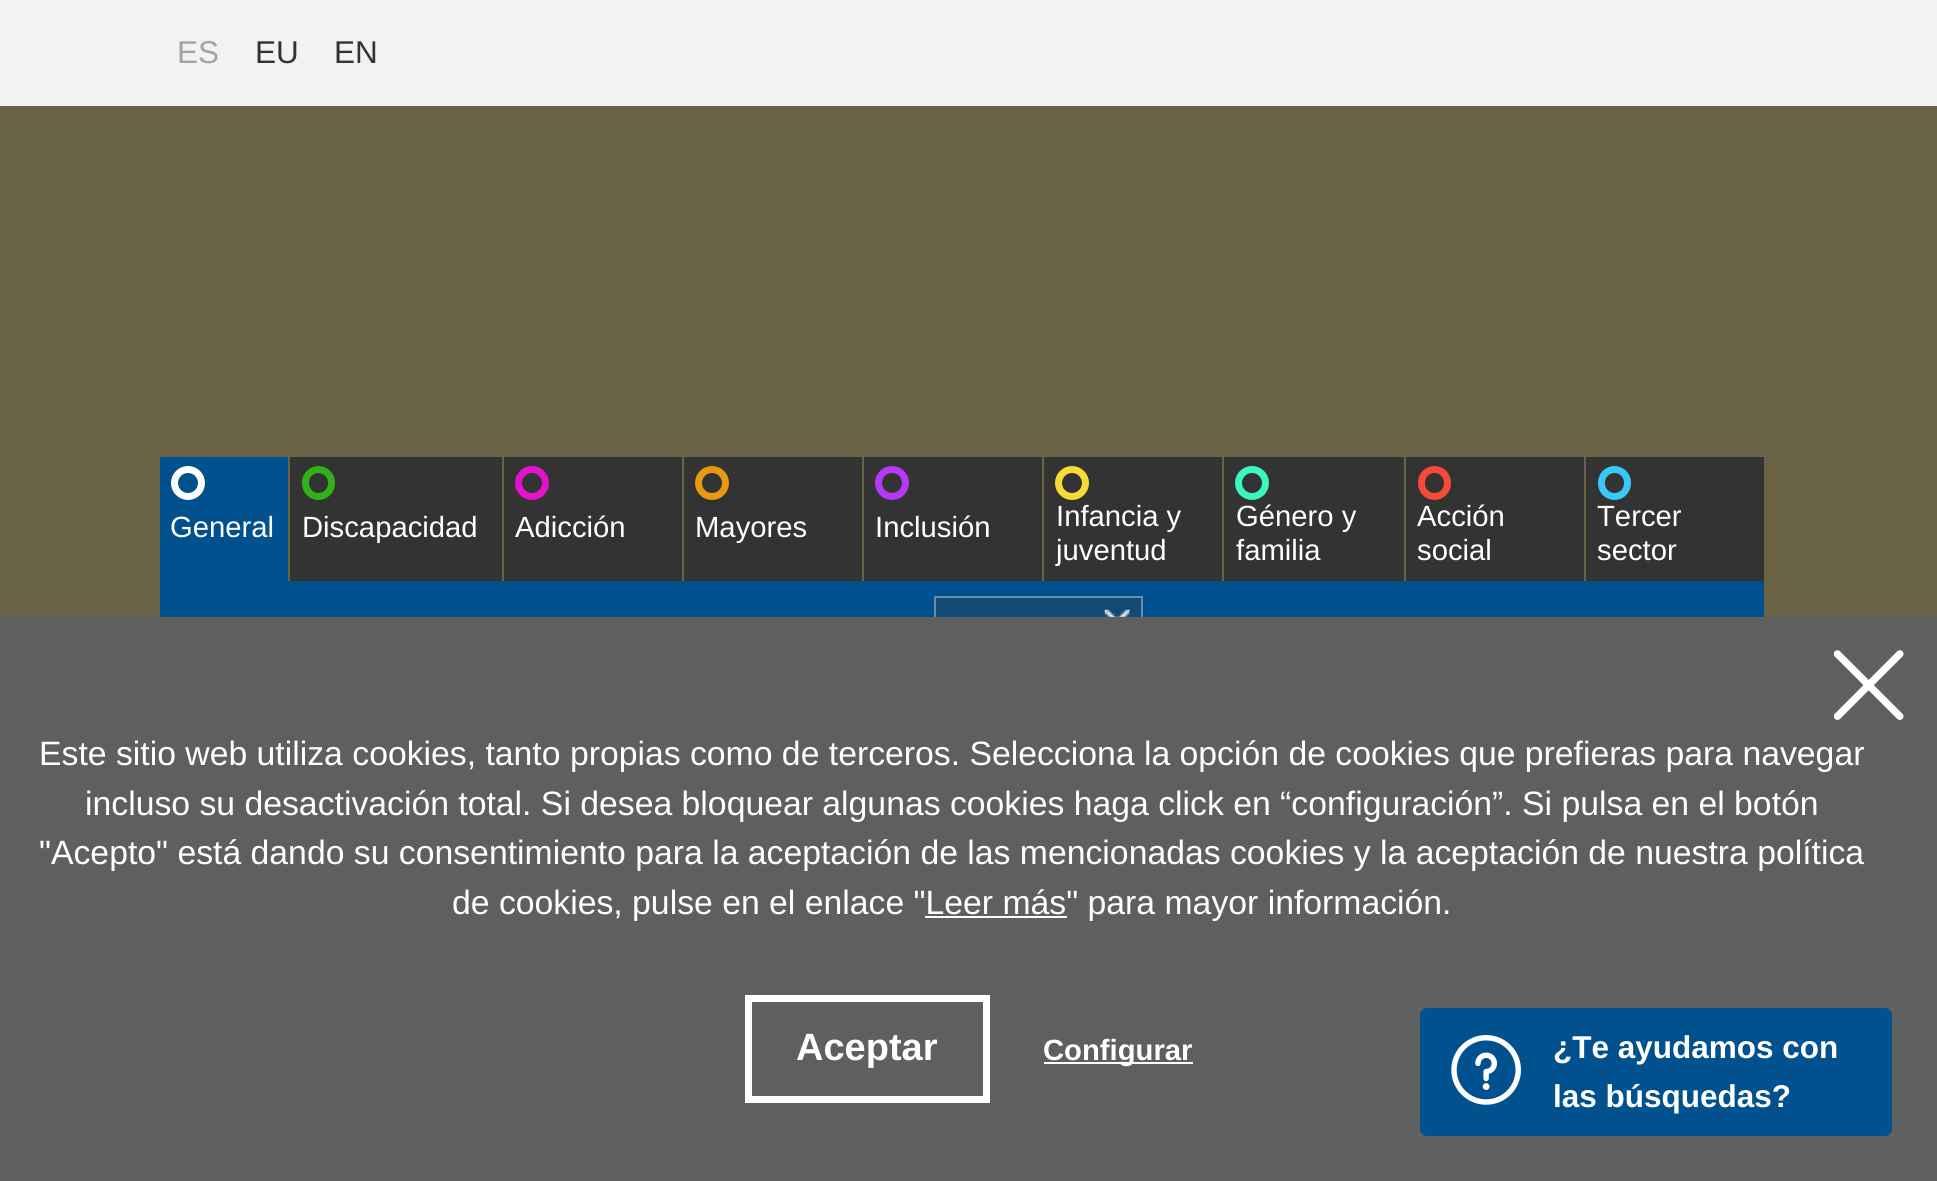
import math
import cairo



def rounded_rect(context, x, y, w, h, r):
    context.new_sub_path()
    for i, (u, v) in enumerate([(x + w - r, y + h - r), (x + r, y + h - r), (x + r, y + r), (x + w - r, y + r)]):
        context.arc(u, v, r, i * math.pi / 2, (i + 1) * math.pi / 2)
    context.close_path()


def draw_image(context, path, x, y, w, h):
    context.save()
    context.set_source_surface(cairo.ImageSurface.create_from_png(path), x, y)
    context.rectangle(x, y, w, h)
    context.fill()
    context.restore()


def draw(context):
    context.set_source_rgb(242 / 255, 242 / 255, 242 / 255)
    context.paint()
    context.set_source_rgb(106 / 255, 98 / 255, 68 / 255)
    context.rectangle(0, 106, 1937, 511)
    context.fill()
    context.set_source_rgb(1 / 255, 81 / 255, 142 / 255)
    context.rectangle(160, 457, 128, 124)
    context.fill()
    context.arc(188, 483, 13.5, 0, 2 * math.pi)
    context.set_source_rgb(1, 1, 1)
    context.set_line_width(7)
    context.stroke()
    context.set_source_rgb(1 / 255, 81 / 255, 142 / 255)
    context.rectangle(160, 581, 1604, 36)
    context.fill()
    context.set_source_rgb(18 / 255, 74 / 255, 117 / 255)
    context.rectangle(936, 598, 205, 19)
    context.fill()
    context.rectangle(935, 597, 207, 82)
    context.set_source_rgb(106 / 255, 141 / 255, 168 / 255)
    context.set_line_width(2)
    context.stroke()
    draw_image(context, "images/1.png", 1104, 609, 26, 8)
    context.set_source_rgb(52 / 255, 51 / 255, 51 / 255)
    context.rectangle(290, 457, 212, 124)
    context.fill()
    rounded_rect(context, 305.5, 469.5, 26, 27, 13)
    context.set_source_rgb(49 / 255, 177 / 255, 23 / 255)
    context.set_line_width(7)
    context.stroke()
    context.set_source_rgb(52 / 255, 51 / 255, 51 / 255)
    context.rectangle(504, 457, 178, 124)
    context.fill()
    context.arc(532, 483, 13.5, 0, 2 * math.pi)
    context.set_source_rgb(229 / 255, 18 / 255, 201 / 255)
    context.stroke()
    context.set_source_rgb(52 / 255, 51 / 255, 51 / 255)
    context.rectangle(684, 457, 178, 124)
    context.fill()
    context.arc(712, 483, 13.5, 0, 2 * math.pi)
    context.set_source_rgb(231 / 255, 153 / 255, 18 / 255)
    context.stroke()
    context.set_source_rgb(52 / 255, 51 / 255, 51 / 255)
    context.rectangle(864, 457, 178, 124)
    context.fill()
    context.arc(892, 483, 13.5, 0, 2 * math.pi)
    context.set_source_rgb(183 / 255, 56 / 255, 248 / 255)
    context.stroke()
    context.set_source_rgb(52 / 255, 51 / 255, 51 / 255)
    context.rectangle(1044, 457, 178, 124)
    context.fill()
    context.arc(1072, 483, 13.5, 0, 2 * math.pi)
    context.set_source_rgb(248 / 255, 219 / 255, 56 / 255)
    context.stroke()
    context.set_source_rgb(52 / 255, 51 / 255, 51 / 255)
    context.rectangle(1224, 457, 180, 124)
    context.fill()
    context.arc(1252, 483, 13.5, 0, 2 * math.pi)
    context.set_source_rgb(56 / 255, 248 / 255, 192 / 255)
    context.stroke()
    context.set_source_rgb(52 / 255, 51 / 255, 51 / 255)
    context.rectangle(1406, 457, 178, 124)
    context.fill()
    rounded_rect(context, 1421.5, 469.5, 26, 27, 13)
    context.set_source_rgb(248 / 255, 74 / 255, 56 / 255)
    context.stroke()
    context.set_source_rgb(52 / 255, 51 / 255, 51 / 255)
    context.rectangle(1586, 457, 178, 124)
    context.fill()
    rounded_rect(context, 1601.5, 469.5, 26, 27, 13)
    context.set_source_rgb(56 / 255, 201 / 255, 248 / 255)
    context.stroke()
    context.set_source_rgb(94 / 255, 95 / 255, 95 / 255)
    context.rectangle(0, 617, 1937, 564)
    context.fill()
    draw_image(context, "images/2.png", 1834, 650, 70, 70)
    context.set_source_rgb(1, 1, 1)
    context.rectangle(925, 916, 142, 2)
    context.fill()
    context.rectangle(748.5, 998.5, 238, 101)
    context.stroke()
    context.rectangle(1044, 1062, 149, 2)
    context.fill()
    context.set_source_rgb(1 / 255, 81 / 255, 142 / 255)
    rounded_rect(context, 1420, 1008, 472, 128, 7)
    context.fill()
    draw_image(context, "images/3.png", 1451, 1035, 70, 70)
    context.select_font_face("Liberation Sans")
    context.set_font_size(31.5)
    context.set_source_rgb(164 / 255, 163 / 255, 163 / 255)
    context.move_to(177, 63)
    context.show_text("ES")
    context.set_source_rgb(52 / 255, 51 / 255, 51 / 255)
    context.move_to(255, 63)
    context.show_text("EU")
    context.move_to(334, 63)
    context.show_text("EN")
    context.set_font_size(29.25)
    context.set_source_rgb(1, 1, 1)
    context.move_to(170, 537)
    context.show_text("General")
    context.move_to(302, 537)
    context.show_text("Discapacidad")
    context.move_to(515, 537)
    context.show_text("Adicción")
    context.move_to(695, 537)
    context.show_text("Mayores")
    context.move_to(875, 537)
    context.show_text("Inclusión")
    context.move_to(1056, 526)
    context.show_text("Infancia y")
    context.move_to(1056, 560)
    context.show_text("juventud")
    context.move_to(1236, 526)
    context.show_text("Género y")
    context.move_to(1236, 560)
    context.show_text("familia")
    context.move_to(1417, 526)
    context.show_text("Acción")
    context.move_to(1417, 560)
    context.show_text("social")
    context.move_to(1597, 526)
    context.show_text("Tercer")
    context.move_to(1597, 560)
    context.show_text("sector")
    context.set_font_size(33.75)
    context.move_to(39, 765)
    context.show_text("Este sitio web utiliza cookies, tanto propias como de terceros. Selecciona la opción de cookies que prefieras para navegar")
    context.move_to(85, 815)
    context.show_text("incluso su desactivación total. Si desea bloquear algunas cookies haga click en “configuración”. Si pulsa en el botón")
    context.move_to(39, 864)
    context.show_text("\"Acepto\" está dando su consentimiento para la aceptación de las mencionadas cookies y la aceptación de nuestra política")
    context.move_to(452, 914)
    context.show_text("de cookies, pulse en el enlace \"Leer más\" para mayor información.")
    context.select_font_face("Liberation Sans", cairo.FontSlant.NORMAL, cairo.FontWeight.BOLD)
    context.set_font_size(38)
    context.move_to(796, 1060)
    context.show_text("Aceptar")
    context.set_font_size(29.25)
    context.move_to(1043, 1060)
    context.show_text("Configurar")
    context.set_font_size(31.5)
    context.move_to(1553, 1058)
    context.show_text("¿Te ayudamos con")
    context.move_to(1553, 1107)
    context.show_text("las búsquedas?")


surface = cairo.ImageSurface(cairo.Format.RGB24, 1937, 1181)
context = cairo.Context(surface)
options = cairo.FontOptions()
options.set_hint_metrics(cairo.HintMetrics.OFF)
options.set_hint_style(cairo.HintStyle.NONE)
context.set_font_options(options)
context.set_miter_limit(4)
draw(context)
surface.write_to_png("out.png")
